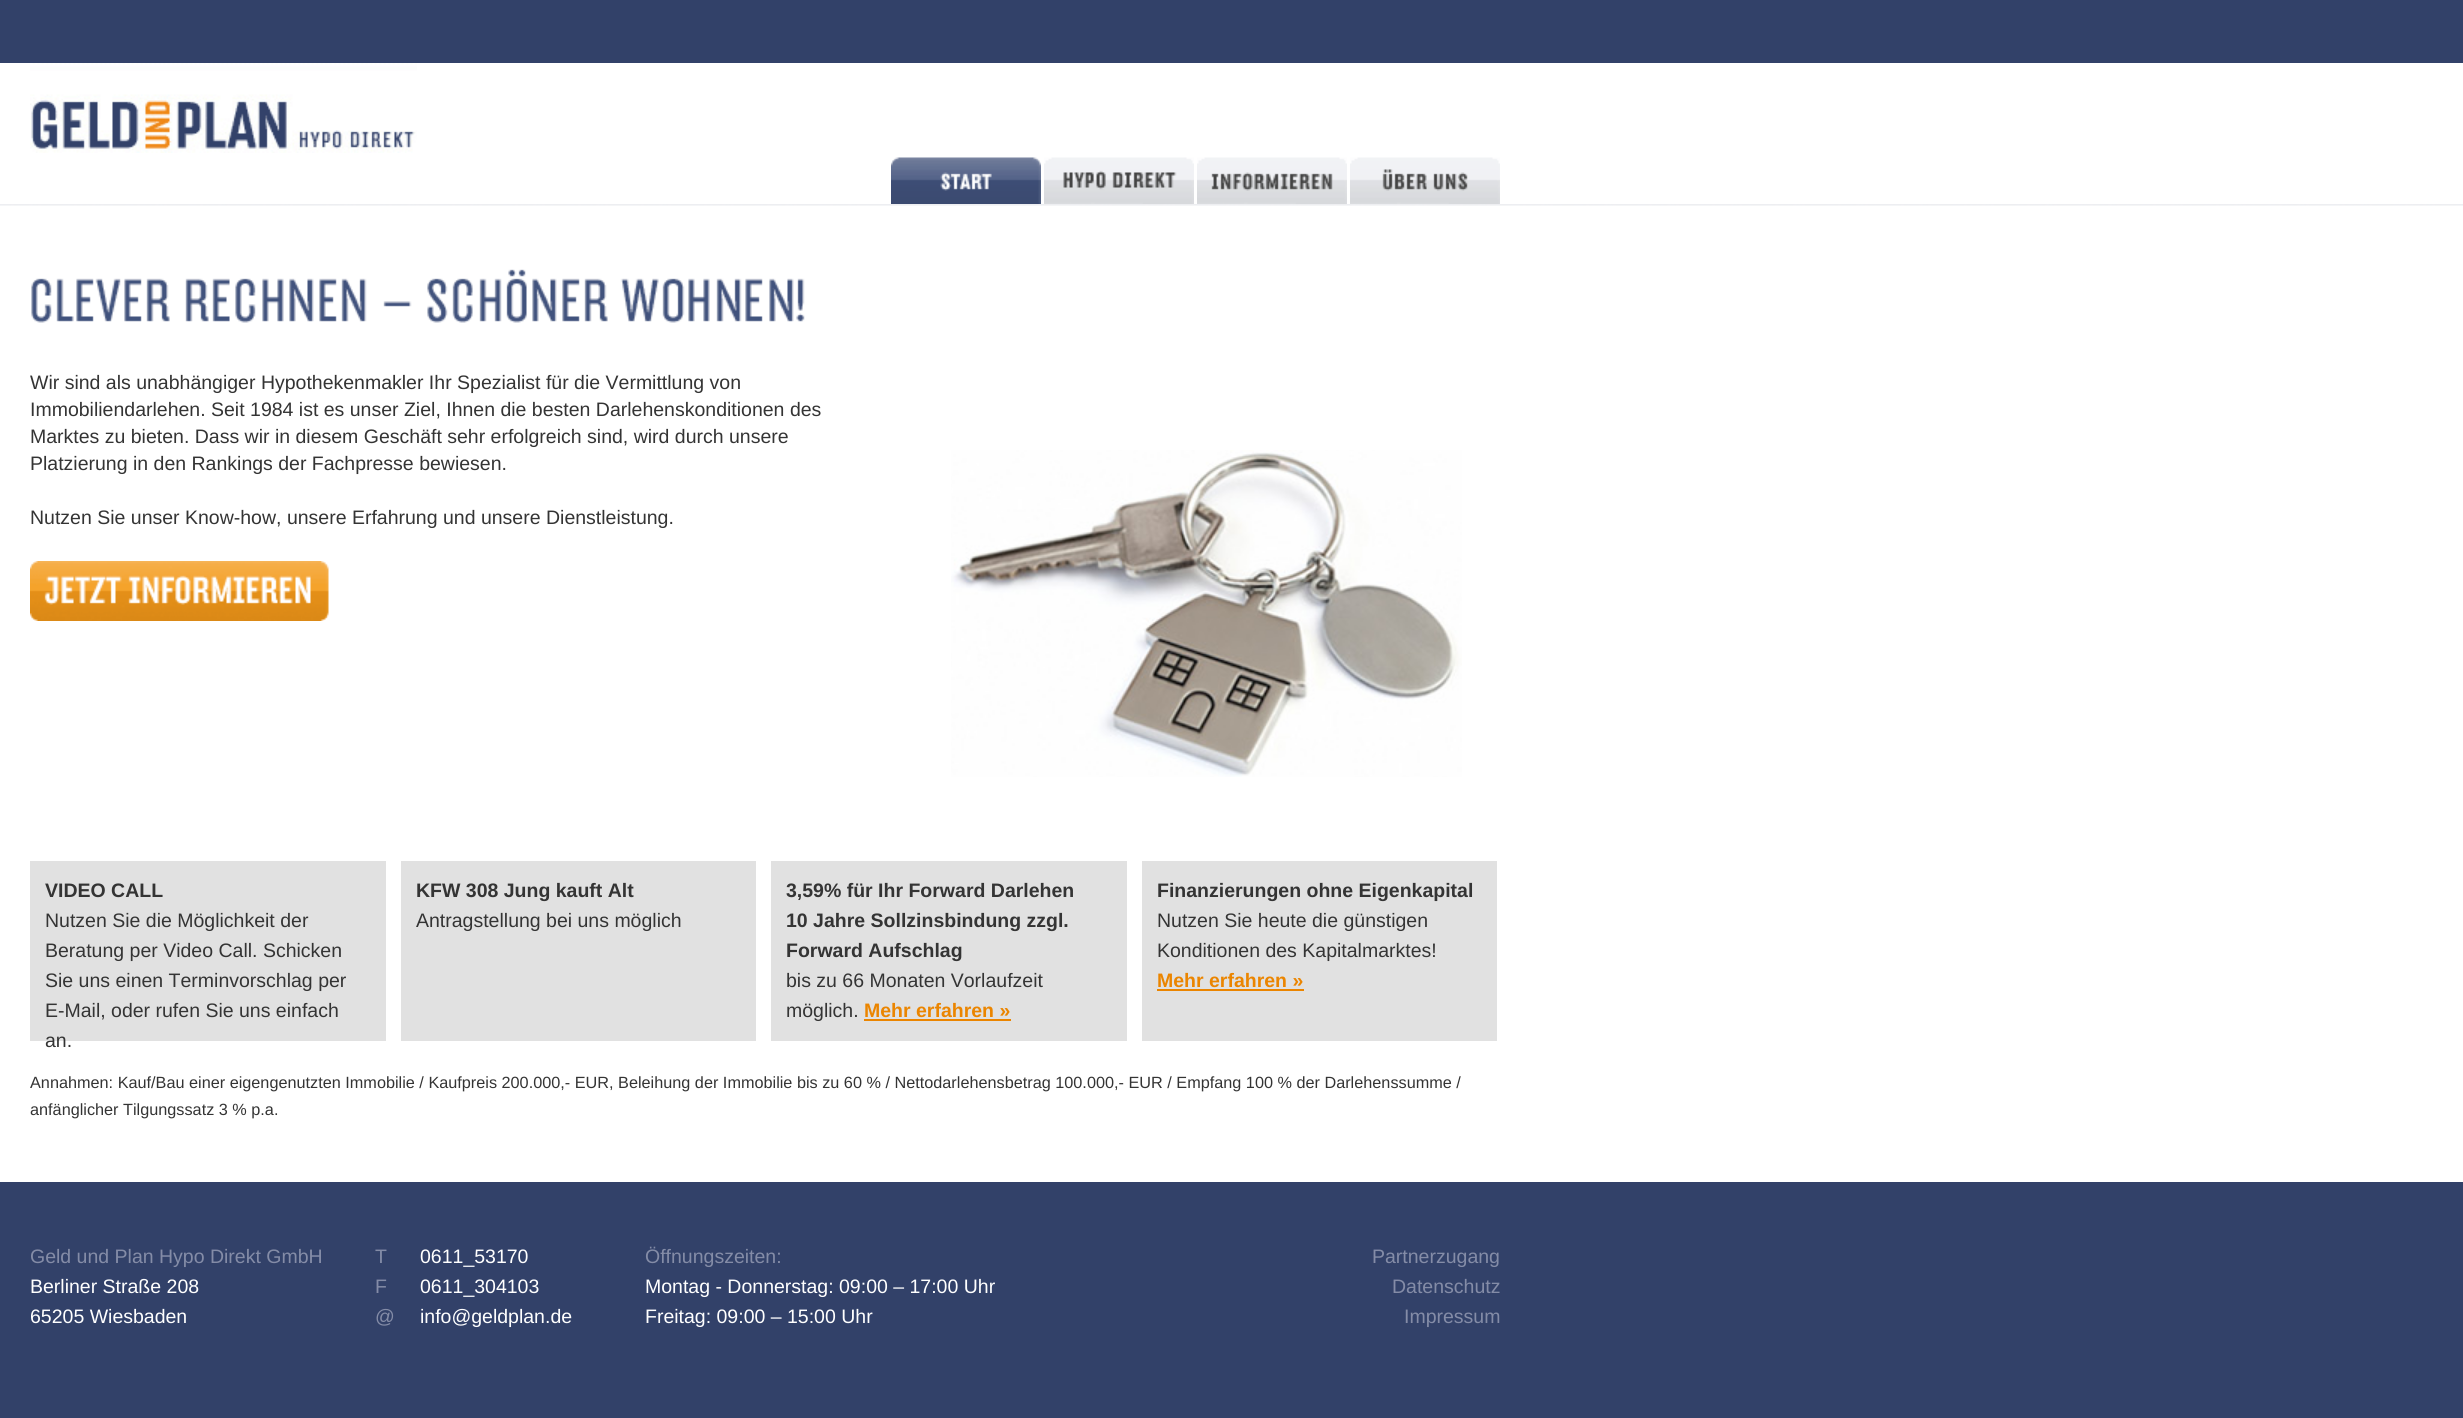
import math
import cairo



def draw_image(context, path, x, y, w, h):
    context.save()
    context.set_source_surface(cairo.ImageSurface.create_from_png(path), x, y)
    context.rectangle(x, y, w, h)
    context.fill()
    context.restore()


def draw(context):
    context.set_source_rgb(50 / 255, 65 / 255, 105 / 255)
    context.paint()
    context.set_source_rgb(1, 1, 1)
    context.rectangle(0, 63, 2463, 1119)
    context.fill()
    draw_image(context, "images/1.png", 0, 204, 2463, 2)
    draw_image(context, "images/2.png", 30, 63, 387, 90)
    draw_image(context, "images/3.png", 891, 157, 150, 47)
    draw_image(context, "images/4.png", 1044, 157, 150, 47)
    draw_image(context, "images/5.png", 1197, 157, 150, 47)
    draw_image(context, "images/6.png", 1350, 157, 150, 47)
    draw_image(context, "images/7.png", 951, 450, 511, 327)
    draw_image(context, "images/8.png", 31, 269, 774, 54)
    draw_image(context, "images/9.png", 30, 561, 299, 60)
    context.set_source_rgb(225 / 255, 225 / 255, 225 / 255)
    context.rectangle(30, 861, 356, 180)
    context.fill()
    context.rectangle(401, 861, 355, 180)
    context.fill()
    context.rectangle(771, 861, 356, 180)
    context.fill()
    context.set_source_rgb(235 / 255, 133 / 255, 0)
    context.rectangle(864, 1019, 147, 2)
    context.fill()
    context.set_source_rgb(225 / 255, 225 / 255, 225 / 255)
    context.rectangle(1142, 861, 355, 180)
    context.fill()
    context.set_source_rgb(235 / 255, 133 / 255, 0)
    context.rectangle(1157, 989, 147, 2)
    context.fill()
    context.select_font_face("Liberation Sans")
    context.set_font_size(19.5)
    context.set_source_rgb(52 / 255, 52 / 255, 52 / 255)
    context.move_to(30, 389)
    context.show_text("Wir sind als unabhängiger Hypothekenmakler Ihr Spezialist für die Vermittlung von")
    context.move_to(30, 416)
    context.show_text("Immobiliendarlehen. Seit 1984 ist es unser Ziel, Ihnen die besten Darlehenskonditionen des")
    context.move_to(30, 443)
    context.show_text("Marktes zu bieten. Dass wir in diesem Geschäft sehr erfolgreich sind, wird durch unsere")
    context.move_to(30, 470)
    context.show_text("Platzierung in den Rankings der Fachpresse bewiesen.")
    context.move_to(30, 524)
    context.show_text("Nutzen Sie unser Know-how, unsere Erfahrung und unsere Dienstleistung.")
    context.select_font_face("Liberation Sans", cairo.FontSlant.NORMAL, cairo.FontWeight.BOLD)
    context.move_to(45, 897)
    context.show_text("VIDEO CALL")
    context.select_font_face("Liberation Sans")
    context.move_to(45, 927)
    context.show_text("Nutzen Sie die Möglichkeit der")
    context.move_to(45, 957)
    context.show_text("Beratung per Video Call. Schicken")
    context.move_to(45, 987)
    context.show_text("Sie uns einen Terminvorschlag per")
    context.move_to(45, 1017)
    context.show_text("E-Mail, oder rufen Sie uns einfach")
    context.move_to(45, 1047)
    context.show_text("an.")
    context.select_font_face("Liberation Sans", cairo.FontSlant.NORMAL, cairo.FontWeight.BOLD)
    context.move_to(416, 897)
    context.show_text("KFW 308 Jung kauft Alt")
    context.select_font_face("Liberation Sans")
    context.move_to(416, 927)
    context.show_text("Antragstellung bei uns möglich")
    context.select_font_face("Liberation Sans", cairo.FontSlant.NORMAL, cairo.FontWeight.BOLD)
    context.move_to(786, 897)
    context.show_text("3,59% für Ihr Forward Darlehen")
    context.move_to(786, 927)
    context.show_text("10 Jahre Sollzinsbindung zzgl.")
    context.move_to(786, 957)
    context.show_text("Forward Aufschlag")
    context.select_font_face("Liberation Sans")
    context.move_to(786, 987)
    context.show_text("bis zu 66 Monaten Vorlaufzeit")
    context.move_to(786, 1017)
    context.show_text("möglich.")
    context.select_font_face("Liberation Sans", cairo.FontSlant.NORMAL, cairo.FontWeight.BOLD)
    context.set_source_rgb(235 / 255, 133 / 255, 0)
    context.move_to(864, 1017)
    context.show_text("Mehr erfahren »")
    context.set_source_rgb(52 / 255, 52 / 255, 52 / 255)
    context.move_to(1157, 897)
    context.show_text("Finanzierungen ohne Eigenkapital")
    context.select_font_face("Liberation Sans")
    context.move_to(1157, 927)
    context.show_text("Nutzen Sie heute die günstigen")
    context.move_to(1157, 957)
    context.show_text("Konditionen des Kapitalmarktes!")
    context.select_font_face("Liberation Sans", cairo.FontSlant.NORMAL, cairo.FontWeight.BOLD)
    context.set_source_rgb(235 / 255, 133 / 255, 0)
    context.move_to(1157, 987)
    context.show_text("Mehr erfahren »")
    context.select_font_face("Liberation Sans")
    context.set_font_size(16.25)
    context.set_source_rgb(52 / 255, 52 / 255, 52 / 255)
    context.move_to(30, 1088)
    context.show_text("Annahmen: Kauf/Bau einer eigengenutzten Immobilie / Kaufpreis 200.000,- EUR, Beleihung der Immobilie bis zu 60 % / Nettodarlehensbetrag 100.000,- EUR / Empfang 100 % der Darlehenssumme /")
    context.move_to(30, 1115)
    context.show_text("anfänglicher Tilgungssatz 3 % p.a.")
    context.set_font_size(19.5)
    context.set_source_rgb(132 / 255, 140 / 255, 167 / 255)
    context.move_to(30, 1263)
    context.show_text("Geld und Plan Hypo Direkt GmbH")
    context.move_to(375, 1263)
    context.show_text("T")
    context.move_to(375, 1293)
    context.show_text("F")
    context.move_to(375, 1323)
    context.show_text("@")
    context.set_source_rgb(1, 1, 1)
    context.move_to(420, 1263)
    context.show_text("0611_53170")
    context.move_to(420, 1293)
    context.show_text("0611_304103")
    context.move_to(420, 1323)
    context.show_text("info@geldplan.de")
    context.set_source_rgb(132 / 255, 140 / 255, 167 / 255)
    context.move_to(645, 1263)
    context.show_text("Öffnungszeiten:")
    context.set_source_rgb(1, 1, 1)
    context.move_to(645, 1293)
    context.show_text("Montag - Donnerstag: 09:00 – 17:00 Uhr")
    context.move_to(645, 1323)
    context.show_text("Freitag: 09:00 – 15:00 Uhr")
    context.set_source_rgb(132 / 255, 140 / 255, 167 / 255)
    context.move_to(1372, 1263)
    context.show_text("Partnerzugang")
    context.move_to(1392, 1293)
    context.show_text("Datenschutz")
    context.move_to(1404, 1323)
    context.show_text("Impressum")
    context.set_source_rgb(1, 1, 1)
    context.move_to(30, 1293)
    context.show_text("Berliner Straße 208")
    context.move_to(30, 1323)
    context.show_text("65205 Wiesbaden")


surface = cairo.ImageSurface(cairo.Format.RGB24, 2463, 1418)
context = cairo.Context(surface)
options = cairo.FontOptions()
options.set_hint_metrics(cairo.HintMetrics.OFF)
options.set_hint_style(cairo.HintStyle.NONE)
context.set_font_options(options)
context.set_miter_limit(4)
draw(context)
surface.write_to_png("out.png")
